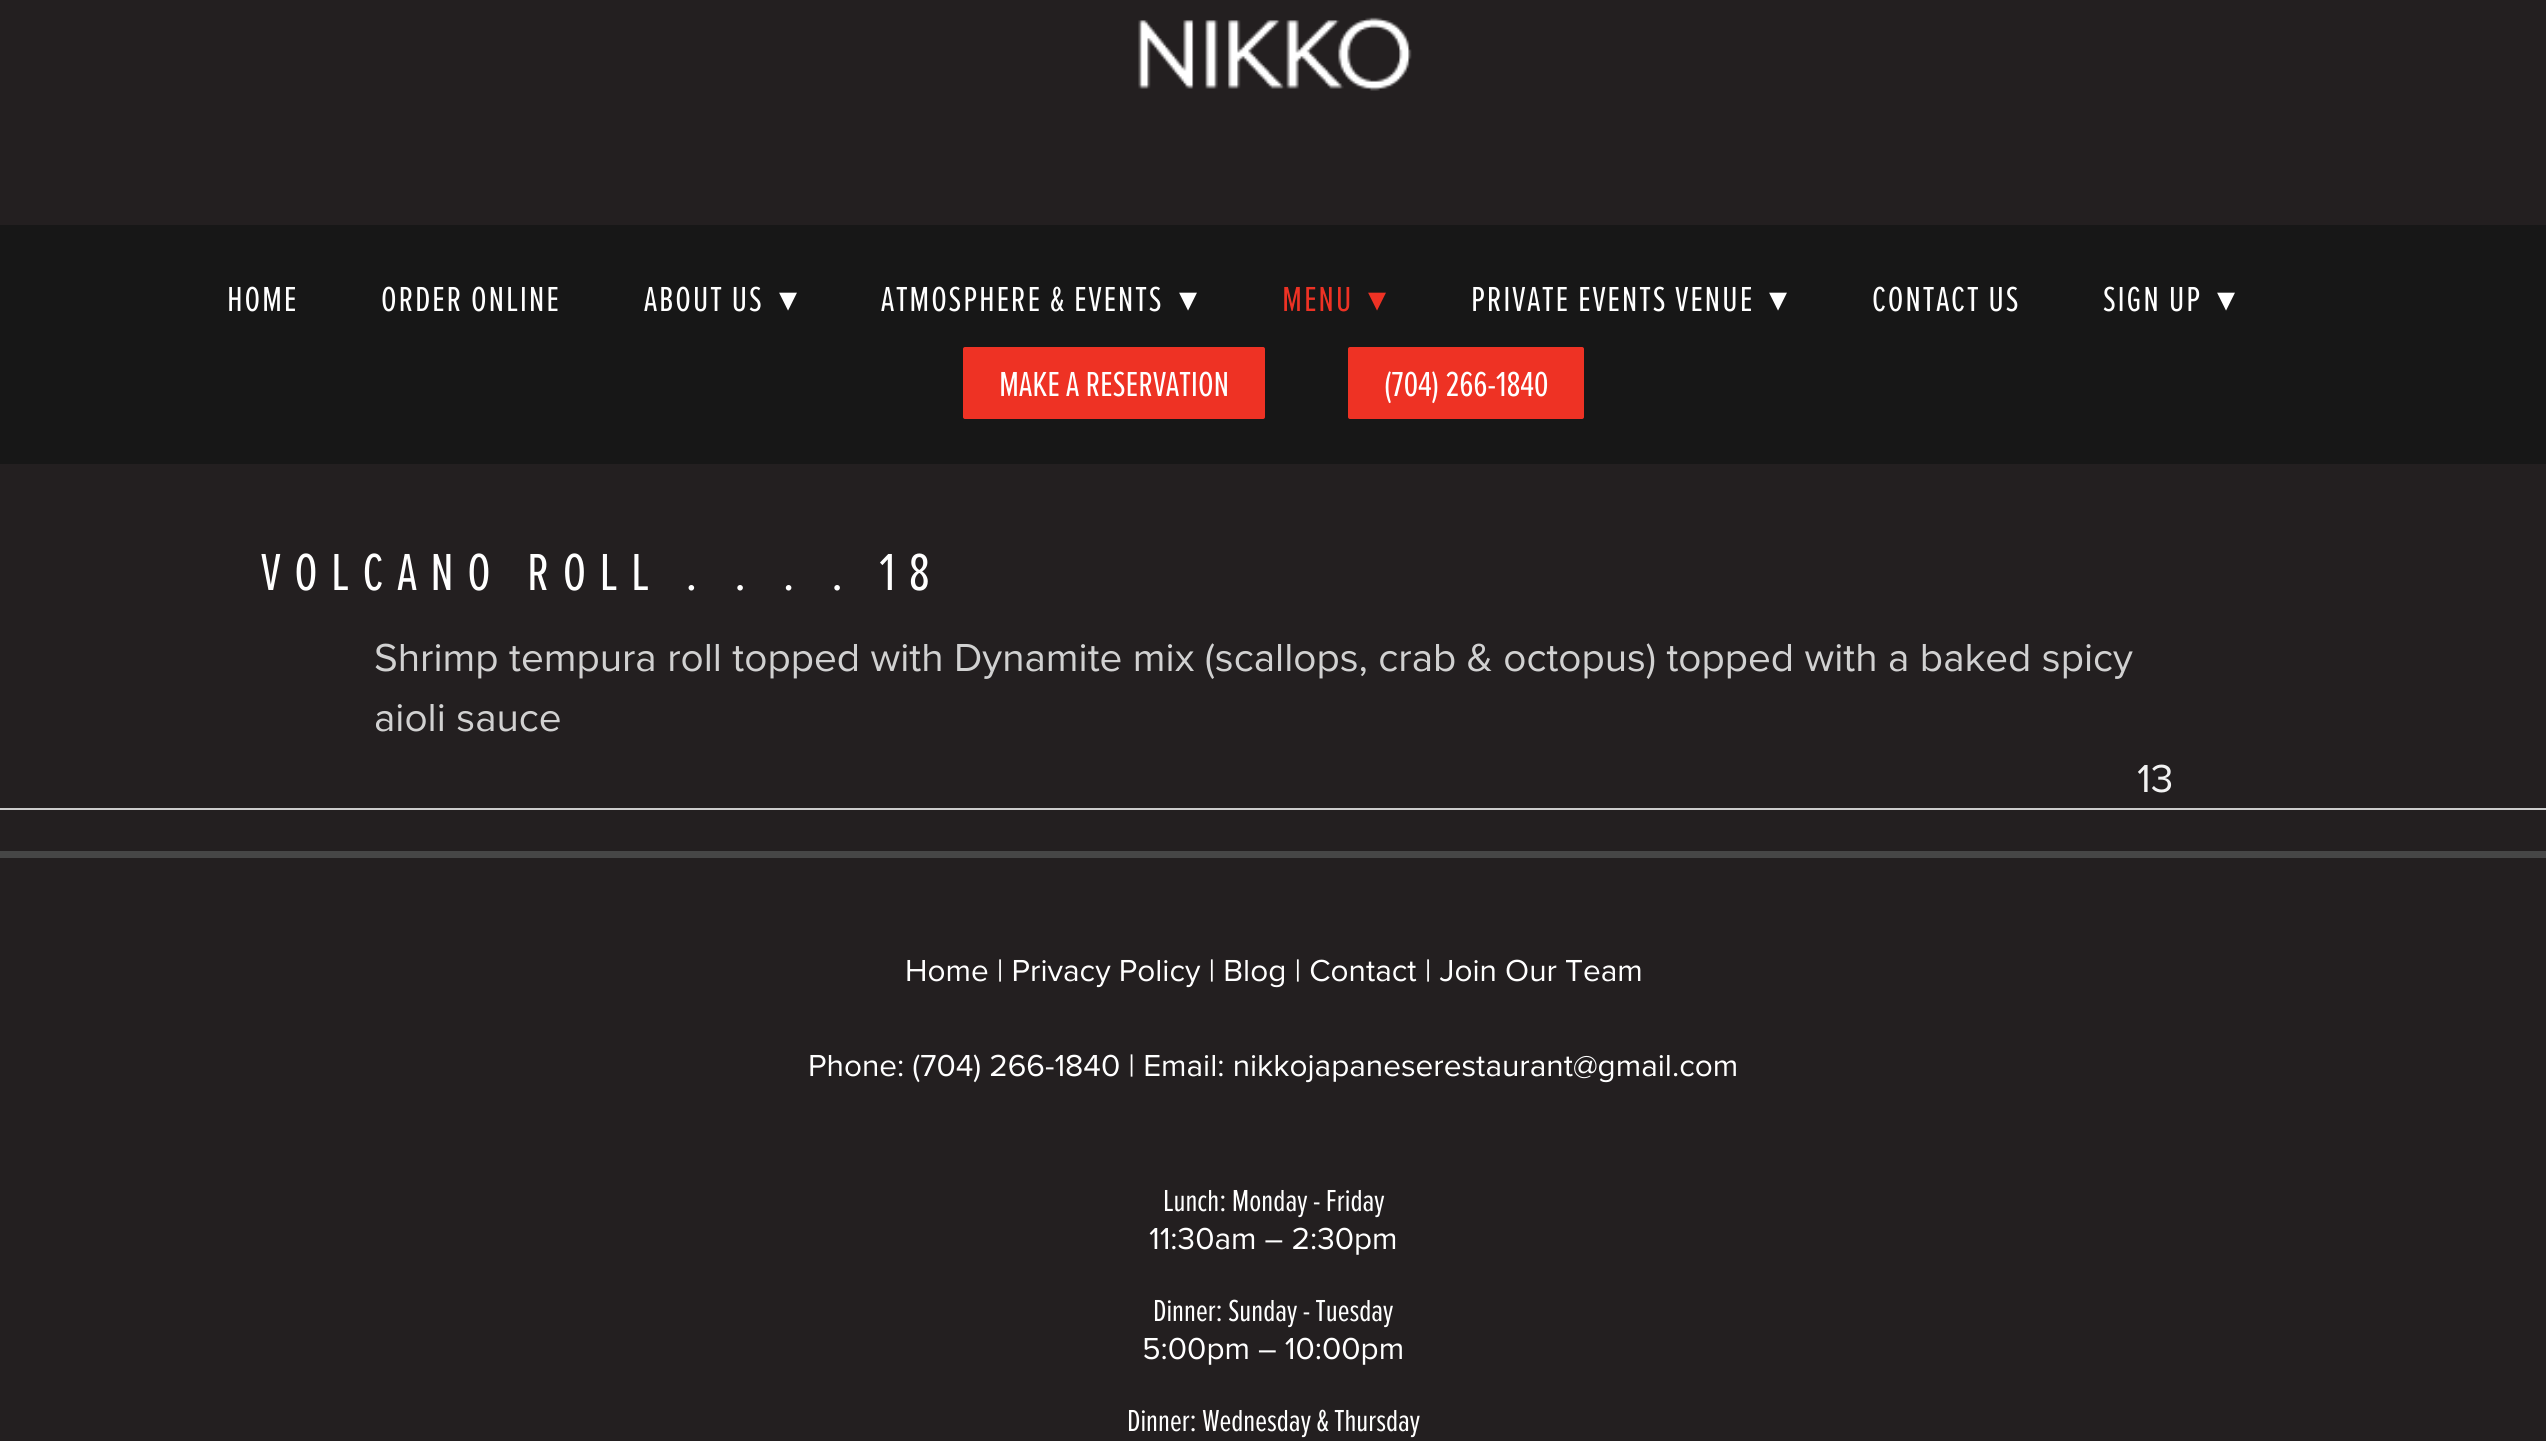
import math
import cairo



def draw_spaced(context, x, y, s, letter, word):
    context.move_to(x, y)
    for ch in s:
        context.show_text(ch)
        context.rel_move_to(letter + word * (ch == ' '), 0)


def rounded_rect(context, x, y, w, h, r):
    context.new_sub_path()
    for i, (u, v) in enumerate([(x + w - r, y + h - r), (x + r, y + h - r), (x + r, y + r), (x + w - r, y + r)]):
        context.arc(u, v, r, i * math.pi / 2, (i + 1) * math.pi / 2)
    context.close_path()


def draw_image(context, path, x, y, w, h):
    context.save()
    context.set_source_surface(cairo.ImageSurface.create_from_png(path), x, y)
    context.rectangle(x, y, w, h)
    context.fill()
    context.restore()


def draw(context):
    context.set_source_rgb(35 / 255, 31 / 255, 32 / 255)
    context.paint()
    draw_image(context, "images/1.png", 1138, 17, 274, 74)
    context.set_source_rgb(23 / 255, 23 / 255, 23 / 255)
    context.rectangle(0, 225, 2546, 239)
    context.fill()
    context.set_source_rgb(238 / 255, 50 / 255, 36 / 255)
    rounded_rect(context, 963, 347, 302, 72, 2)
    context.fill()
    rounded_rect(context, 1348, 347, 236, 72, 2)
    context.fill()
    context.set_source_rgb(204 / 255, 204 / 255, 204 / 255)
    context.rectangle(0, 808, 2546, 2)
    context.fill()
    context.set_source_rgb(70 / 255, 70 / 255, 70 / 255)
    context.rectangle(0, 851, 2546, 7)
    context.fill()
    context.select_font_face("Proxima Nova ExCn")
    context.set_font_size(36)
    context.set_source_rgb(1, 1, 1)
    draw_spaced(context, 227, 311, "HOME", 1.8, 0)
    draw_spaced(context, 381, 311, "ORDER ONLINE", 1.8, 0)
    draw_spaced(context, 644, 311, "ABOUT US", 1.8, 0)
    context.select_font_face("DejaVu Sans")
    draw_spaced(context, 779, 311, "▾", 1.8, 0)
    context.select_font_face("Proxima Nova ExCn")
    draw_spaced(context, 881, 311, "ATMOSPHERE & EVENTS", 1.8, 0)
    context.select_font_face("DejaVu Sans")
    draw_spaced(context, 1179, 311, "▾", 1.8, 0)
    context.select_font_face("Proxima Nova ExCn")
    context.set_source_rgb(238 / 255, 50 / 255, 36 / 255)
    draw_spaced(context, 1282, 311, "MENU", 1.8, 0)
    context.select_font_face("DejaVu Sans")
    draw_spaced(context, 1368, 311, "▾", 1.8, 0)
    context.select_font_face("Proxima Nova ExCn")
    context.set_source_rgb(1, 1, 1)
    draw_spaced(context, 1471, 311, "PRIVATE EVENTS VENUE", 1.8, 0)
    context.select_font_face("DejaVu Sans")
    draw_spaced(context, 1769, 311, "▾", 1.8, 0)
    context.select_font_face("Proxima Nova ExCn")
    draw_spaced(context, 1872, 311, "CONTACT US", 1.8, 0)
    draw_spaced(context, 2103, 311, "SIGN UP", 1.8, 0)
    context.select_font_face("DejaVu Sans")
    draw_spaced(context, 2217, 311, "▾", 1.8, 0)
    context.select_font_face("Proxima Nova ExCn")
    context.move_to(999, 396)
    context.show_text("MAKE A RESERVATION")
    context.move_to(1384, 396)
    context.show_text("(704) 266-1840")
    context.set_font_size(54)
    draw_spaced(context, 261, 590, "VOLCANO ROLL . . . . 18", 13.5, 0)
    context.select_font_face("Proxima Nova")
    context.set_font_size(40.5)
    context.set_source_rgb(209 / 255, 209 / 255, 209 / 255)
    context.move_to(374, 671)
    context.show_text("Shrimp tempura roll topped with Dynamite mix (scallops, crab & octopus) topped with a baked spicy")
    context.move_to(374, 731)
    context.show_text("aioli sauce")
    context.set_source_rgb(242 / 255, 242 / 255, 242 / 255)
    context.move_to(2137, 792)
    context.show_text("13")
    context.set_font_size(31.5)
    context.set_source_rgb(1, 1, 1)
    context.move_to(905, 981)
    context.show_text("Home | Privacy Policy | Blog | Contact | Join Our Team")
    context.move_to(808, 1076)
    context.show_text("Phone: (704) 266-1840 | Email: nikkojapaneserestaurant@gmail.com")
    context.select_font_face("Proxima Nova ExCn")
    context.move_to(1163, 1211)
    context.show_text("Lunch: Monday - Friday")
    context.select_font_face("Proxima Nova")
    context.move_to(1149, 1249)
    context.show_text("11:30am – 2:30pm")
    context.select_font_face("Proxima Nova ExCn")
    context.move_to(1153, 1321)
    context.show_text("Dinner: Sunday - Tuesday")
    context.select_font_face("Proxima Nova")
    context.move_to(1142, 1359)
    context.show_text("5:00pm – 10:00pm")
    context.select_font_face("Proxima Nova ExCn")
    context.move_to(1127, 1431)
    context.show_text("Dinner: Wednesday & Thursday")


surface = cairo.ImageSurface(cairo.Format.RGB24, 2546, 1441)
context = cairo.Context(surface)
options = cairo.FontOptions()
options.set_hint_metrics(cairo.HintMetrics.OFF)
options.set_hint_style(cairo.HintStyle.NONE)
context.set_font_options(options)
context.set_miter_limit(4)
draw(context)
surface.write_to_png("out.png")
